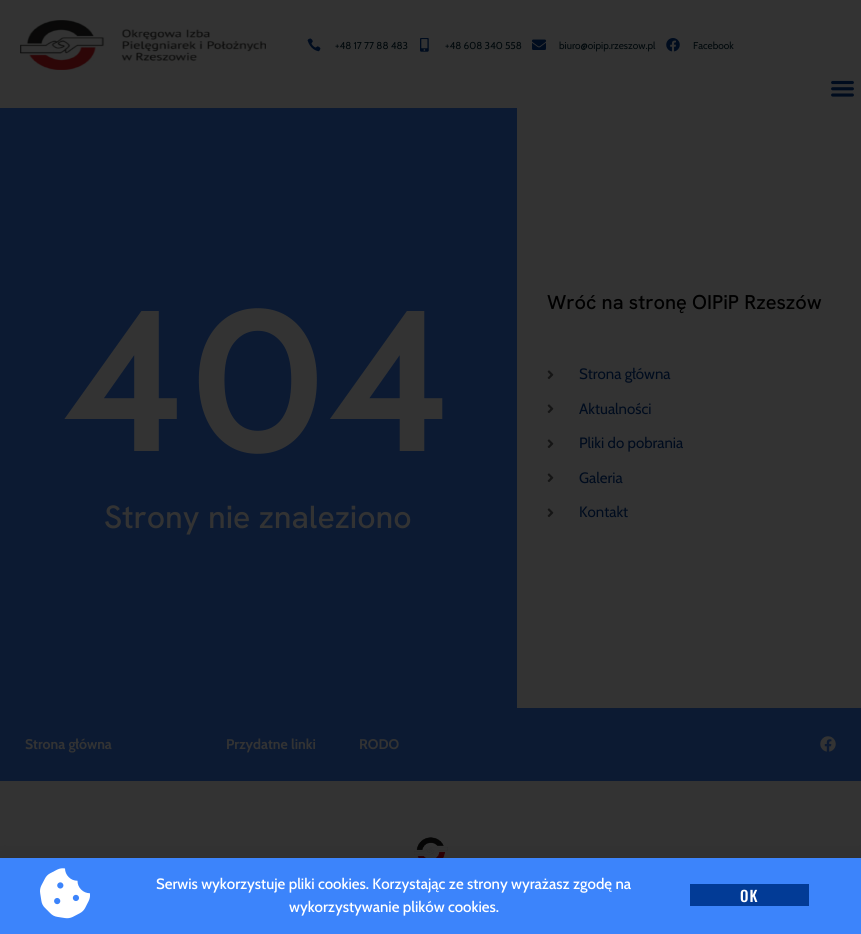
import math
import cairo



def draw_spaced(context, x, y, s, letter, word):
    context.move_to(x, y)
    for ch in s:
        context.show_text(ch)
        context.rel_move_to(letter + word * (ch == ' '), 0)


def rounded_rect(context, x, y, w, h, r):
    context.new_sub_path()
    for i, (u, v) in enumerate([(x + w - r, y + h - r), (x + r, y + h - r), (x + r, y + r), (x + w - r, y + r)]):
        context.arc(u, v, r, i * math.pi / 2, (i + 1) * math.pi / 2)
    context.close_path()


def draw_shadow(context, x, y, w, h, r, blur, alpha):
    context.push_group_with_content(cairo.Content.ALPHA)
    context.set_operator(cairo.Operator.SOURCE)
    for i in range(15, -16, -2):
        e = blur * i / 6
        if min(w, h) + 2 * e > 0:
            context.set_source_rgba(0, 0, 0, alpha * math.erfc((i - 1) / 8.5) / 2)
            rounded_rect(context, x - e, y - e, w + 2 * e, h + 2 * e, max(0, min(r + e + blur * .6, min(w, h) / 2 + e)))
            context.fill()
    context.mask(context.pop_group())


def draw_image(context, path, x, y, w, h):
    context.save()
    context.set_source_surface(cairo.ImageSurface.create_from_png(path), x, y)
    context.rectangle(x, y, w, h)
    context.fill()
    context.restore()


def draw(context):
    context.set_source_rgb(51 / 255, 51 / 255, 51 / 255)
    context.paint()
    draw_image(context, "images/1.png", 20, 20, 246, 50)
    draw_image(context, "images/2.png", 307, 38, 14, 14)
    draw_image(context, "images/3.png", 420, 38, 9, 14)
    draw_image(context, "images/4.png", 532, 39, 14, 11)
    draw_image(context, "images/5.png", 666, 38, 14, 14)
    draw_image(context, "images/6.png", 831, 80, 23, 17)
    context.set_source_rgb(12 / 255, 26 / 255, 50 / 255)
    context.rectangle(0, 108, 517, 600)
    context.fill()
    draw_image(context, "images/7.png", 547, 370, 7, 10)
    draw_image(context, "images/7.png", 547, 404, 7, 10)
    draw_image(context, "images/7.png", 547, 439, 7, 10)
    draw_image(context, "images/7.png", 547, 473, 7, 10)
    draw_image(context, "images/7.png", 547, 508, 7, 10)
    context.rectangle(0, 708, 861, 73)
    context.fill()
    draw_image(context, "images/8.png", 820, 736, 16, 16)
    draw_image(context, "images/9.png", 414, 837, 34, 21)
    context.set_source_rgb(0, 0, 0)
    draw_shadow(context, -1, 863, 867, 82, 0, 11.5, 0.2)
    context.set_source_rgb(60 / 255, 132 / 255, 251 / 255)
    context.rectangle(0, 858, 861, 76)
    context.fill()
    draw_image(context, "images/10.png", 40, 868, 50, 51)
    context.set_source_rgb(2 / 255, 59 / 255, 150 / 255)
    context.rectangle(690, 884, 119, 22)
    context.fill()
    context.select_font_face("Cabin")
    context.set_font_size(10)
    context.set_source_rgb(0, 8 / 255, 11 / 255)
    context.move_to(335, 49)
    context.show_text("+48 17 77 88 483")
    context.move_to(445, 49)
    context.show_text("+48 608 340 558")
    context.move_to(559, 49)
    context.show_text("biuro@oipip.rzeszow.pl")
    context.move_to(693, 49)
    context.show_text("Facebook")
    context.select_font_face("Cabin", cairo.FontSlant.NORMAL, cairo.FontWeight.BOLD)
    context.set_font_size(200)
    context.set_source_rgb(51 / 255, 51 / 255, 51 / 255)
    context.move_to(63, 451)
    context.show_text("404")
    context.select_font_face("Hanken Grotesk Medium")
    context.set_font_size(32)
    context.move_to(104, 528)
    context.show_text("Strony nie znaleziono")
    context.set_font_size(20)
    context.set_source_rgb(0, 0, 0)
    context.move_to(547, 309)
    context.show_text("Wróć na stronę OIPiP Rzeszów")
    context.select_font_face("Cabin")
    context.set_font_size(15)
    context.set_source_rgb(0, 12 / 255, 30 / 255)
    context.move_to(579, 379)
    context.show_text("Strona główna")
    context.move_to(579, 414)
    context.show_text("Aktualności")
    context.move_to(579, 448)
    context.show_text("Pliki do pobrania")
    context.move_to(579, 483)
    context.show_text("Galeria")
    context.move_to(579, 517)
    context.show_text("Kontakt")
    context.select_font_face("Cabin", cairo.FontSlant.NORMAL, cairo.FontWeight.BOLD)
    context.set_font_size(14)
    context.set_source_rgb(51 / 255, 51 / 255, 51 / 255)
    context.move_to(25, 749)
    context.show_text("Strona główna")
    context.move_to(226, 749)
    context.show_text("Przydatne linki")
    context.move_to(359, 749)
    context.show_text("RODO")
    context.select_font_face("Cabin Medium")
    context.set_font_size(15)
    context.set_source_rgb(1, 1, 1)
    context.move_to(156, 889)
    context.show_text("Serwis wykorzystuje pliki cookies. Korzystając ze strony wyrażasz zgodę na")
    context.move_to(289, 912)
    context.show_text("wykorzystywanie plików cookies.")
    context.select_font_face("Oswald Medium")
    draw_spaced(context, 740, 902, "OK", 1, 0)


surface = cairo.ImageSurface(cairo.Format.RGB24, 861, 934)
context = cairo.Context(surface)
options = cairo.FontOptions()
options.set_hint_metrics(cairo.HintMetrics.OFF)
options.set_hint_style(cairo.HintStyle.NONE)
context.set_font_options(options)
context.set_miter_limit(4)
draw(context)
surface.write_to_png("out.png")
